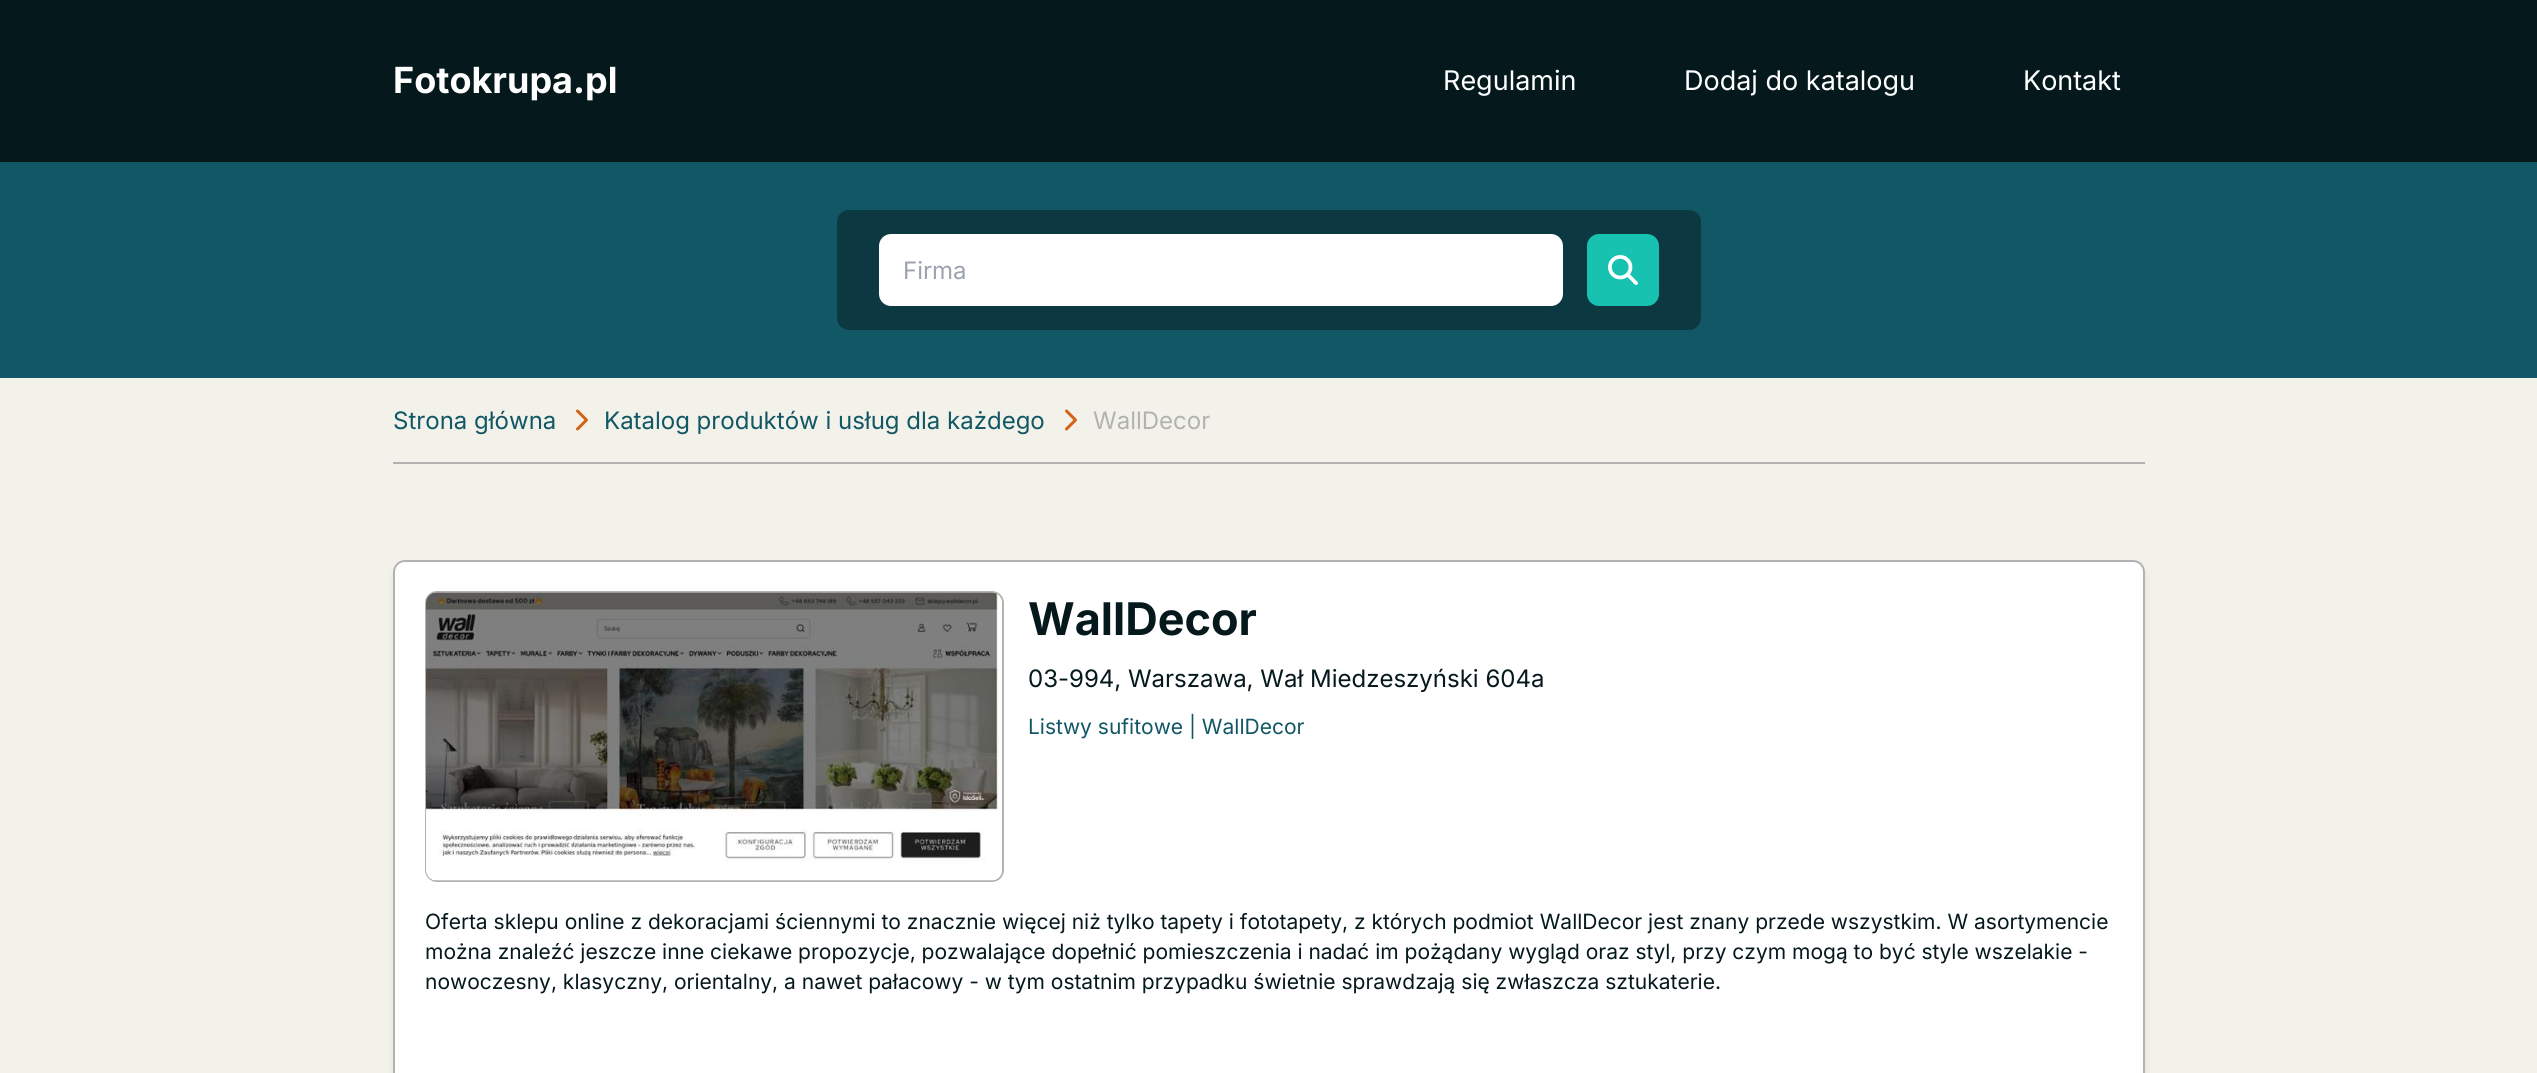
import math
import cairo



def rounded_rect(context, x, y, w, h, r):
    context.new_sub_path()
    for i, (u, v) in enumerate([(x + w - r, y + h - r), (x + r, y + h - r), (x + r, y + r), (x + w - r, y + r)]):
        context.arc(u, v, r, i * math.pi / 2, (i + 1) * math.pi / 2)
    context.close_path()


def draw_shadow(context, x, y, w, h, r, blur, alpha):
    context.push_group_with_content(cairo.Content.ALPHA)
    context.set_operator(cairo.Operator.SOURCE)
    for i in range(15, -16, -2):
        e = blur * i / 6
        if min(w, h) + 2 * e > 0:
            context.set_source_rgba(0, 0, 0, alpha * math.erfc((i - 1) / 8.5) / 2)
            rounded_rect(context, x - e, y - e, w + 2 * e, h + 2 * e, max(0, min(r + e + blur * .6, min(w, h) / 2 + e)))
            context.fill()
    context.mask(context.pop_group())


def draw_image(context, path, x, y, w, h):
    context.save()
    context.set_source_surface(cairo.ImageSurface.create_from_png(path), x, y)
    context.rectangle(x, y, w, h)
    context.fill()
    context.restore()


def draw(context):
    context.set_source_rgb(243 / 255, 242 / 255, 234 / 255)
    context.paint()
    context.set_source_rgb(5 / 255, 25 / 255, 29 / 255)
    context.rectangle(0, 0, 2537, 162)
    context.fill()
    context.set_source_rgb(17 / 255, 87 / 255, 101 / 255)
    context.rectangle(0, 162, 2537, 216)
    context.fill()
    context.set_source_rgb(11 / 255, 56 / 255, 65 / 255)
    rounded_rect(context, 837, 210, 864, 120, 12)
    context.fill()
    context.set_source_rgb(1, 1, 1)
    rounded_rect(context, 879, 234, 684, 72, 12)
    context.fill()
    context.set_source_rgb(23 / 255, 194 / 255, 177 / 255)
    rounded_rect(context, 1587, 234, 72, 72, 12)
    context.fill()
    draw_image(context, "images/1.png", 1608, 255, 30, 30)
    context.set_source_rgb(178 / 255, 178 / 255, 178 / 255)
    context.rectangle(393, 462, 1752, 2)
    context.fill()
    draw_image(context, "images/2.png", 576, 409, 12, 22)
    draw_image(context, "images/2.png", 1065, 409, 12, 22)
    context.set_source_rgb(0, 0, 0)
    draw_shadow(context, 395, 567, 1749, 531, 11, 4.5, 0.1)
    context.set_source_rgb(1, 1, 1)
    rounded_rect(context, 394, 561, 1750, 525, 11)
    context.fill_preserve()
    context.set_source_rgb(178 / 255, 178 / 255, 178 / 255)
    context.stroke()
    rounded_rect(context, 426, 592, 577, 289, 11)
    context.stroke()
    draw_image(context, "images/3.png", 426, 592, 576, 289)
    context.select_font_face("Inter", cairo.FontSlant.NORMAL, cairo.FontWeight.BOLD)
    context.set_font_size(36)
    context.set_source_rgb(1, 1, 1)
    context.move_to(393, 93)
    context.show_text("Fotokrupa.pl")
    context.select_font_face("Inter")
    context.set_font_size(27)
    context.move_to(1443, 90)
    context.show_text("Regulamin")
    context.move_to(1684, 90)
    context.show_text("Dodaj do katalogu")
    context.move_to(2023, 90)
    context.show_text("Kontakt")
    context.set_font_size(24)
    context.set_source_rgb(156 / 255, 163 / 255, 175 / 255)
    context.move_to(903, 279)
    context.show_text("Firma")
    context.set_source_rgb(17 / 255, 87 / 255, 101 / 255)
    context.move_to(393, 429)
    context.show_text("Strona główna")
    context.move_to(604, 429)
    context.show_text("Katalog produktów i usług dla każdego")
    context.set_source_rgb(178 / 255, 178 / 255, 178 / 255)
    context.move_to(1093, 429)
    context.show_text("WallDecor")
    context.select_font_face("Inter", cairo.FontSlant.NORMAL, cairo.FontWeight.BOLD)
    context.set_font_size(45)
    context.set_source_rgb(5 / 255, 25 / 255, 29 / 255)
    context.move_to(1028, 635)
    context.show_text("WallDecor")
    context.select_font_face("Inter")
    context.set_font_size(24)
    context.move_to(1028, 687)
    context.show_text("03-994, Warszawa, Wał Miedzeszyński 604a")
    context.set_font_size(21)
    context.set_source_rgb(17 / 255, 87 / 255, 101 / 255)
    context.move_to(1028, 734)
    context.show_text("Listwy sufitowe | WallDecor")
    context.set_source_rgb(5 / 255, 25 / 255, 29 / 255)
    context.move_to(425, 929)
    context.show_text("Oferta sklepu online z dekoracjami ściennymi to znacznie więcej niż tylko tapety i fototapety, z których podmiot WallDecor jest znany przede wszystkim. W asortymencie")
    context.move_to(425, 959)
    context.show_text("można znaleźć jeszcze inne ciekawe propozycje, pozwalające dopełnić pomieszczenia i nadać im pożądany wygląd oraz styl, przy czym mogą to być style wszelakie -")
    context.move_to(425, 989)
    context.show_text("nowoczesny, klasyczny, orientalny, a nawet pałacowy - w tym ostatnim przypadku świetnie sprawdzają się zwłaszcza sztukaterie.")


surface = cairo.ImageSurface(cairo.Format.RGB24, 2537, 1073)
context = cairo.Context(surface)
options = cairo.FontOptions()
options.set_hint_metrics(cairo.HintMetrics.OFF)
options.set_hint_style(cairo.HintStyle.NONE)
context.set_font_options(options)
context.set_miter_limit(4)
draw(context)
surface.write_to_png("out.png")
